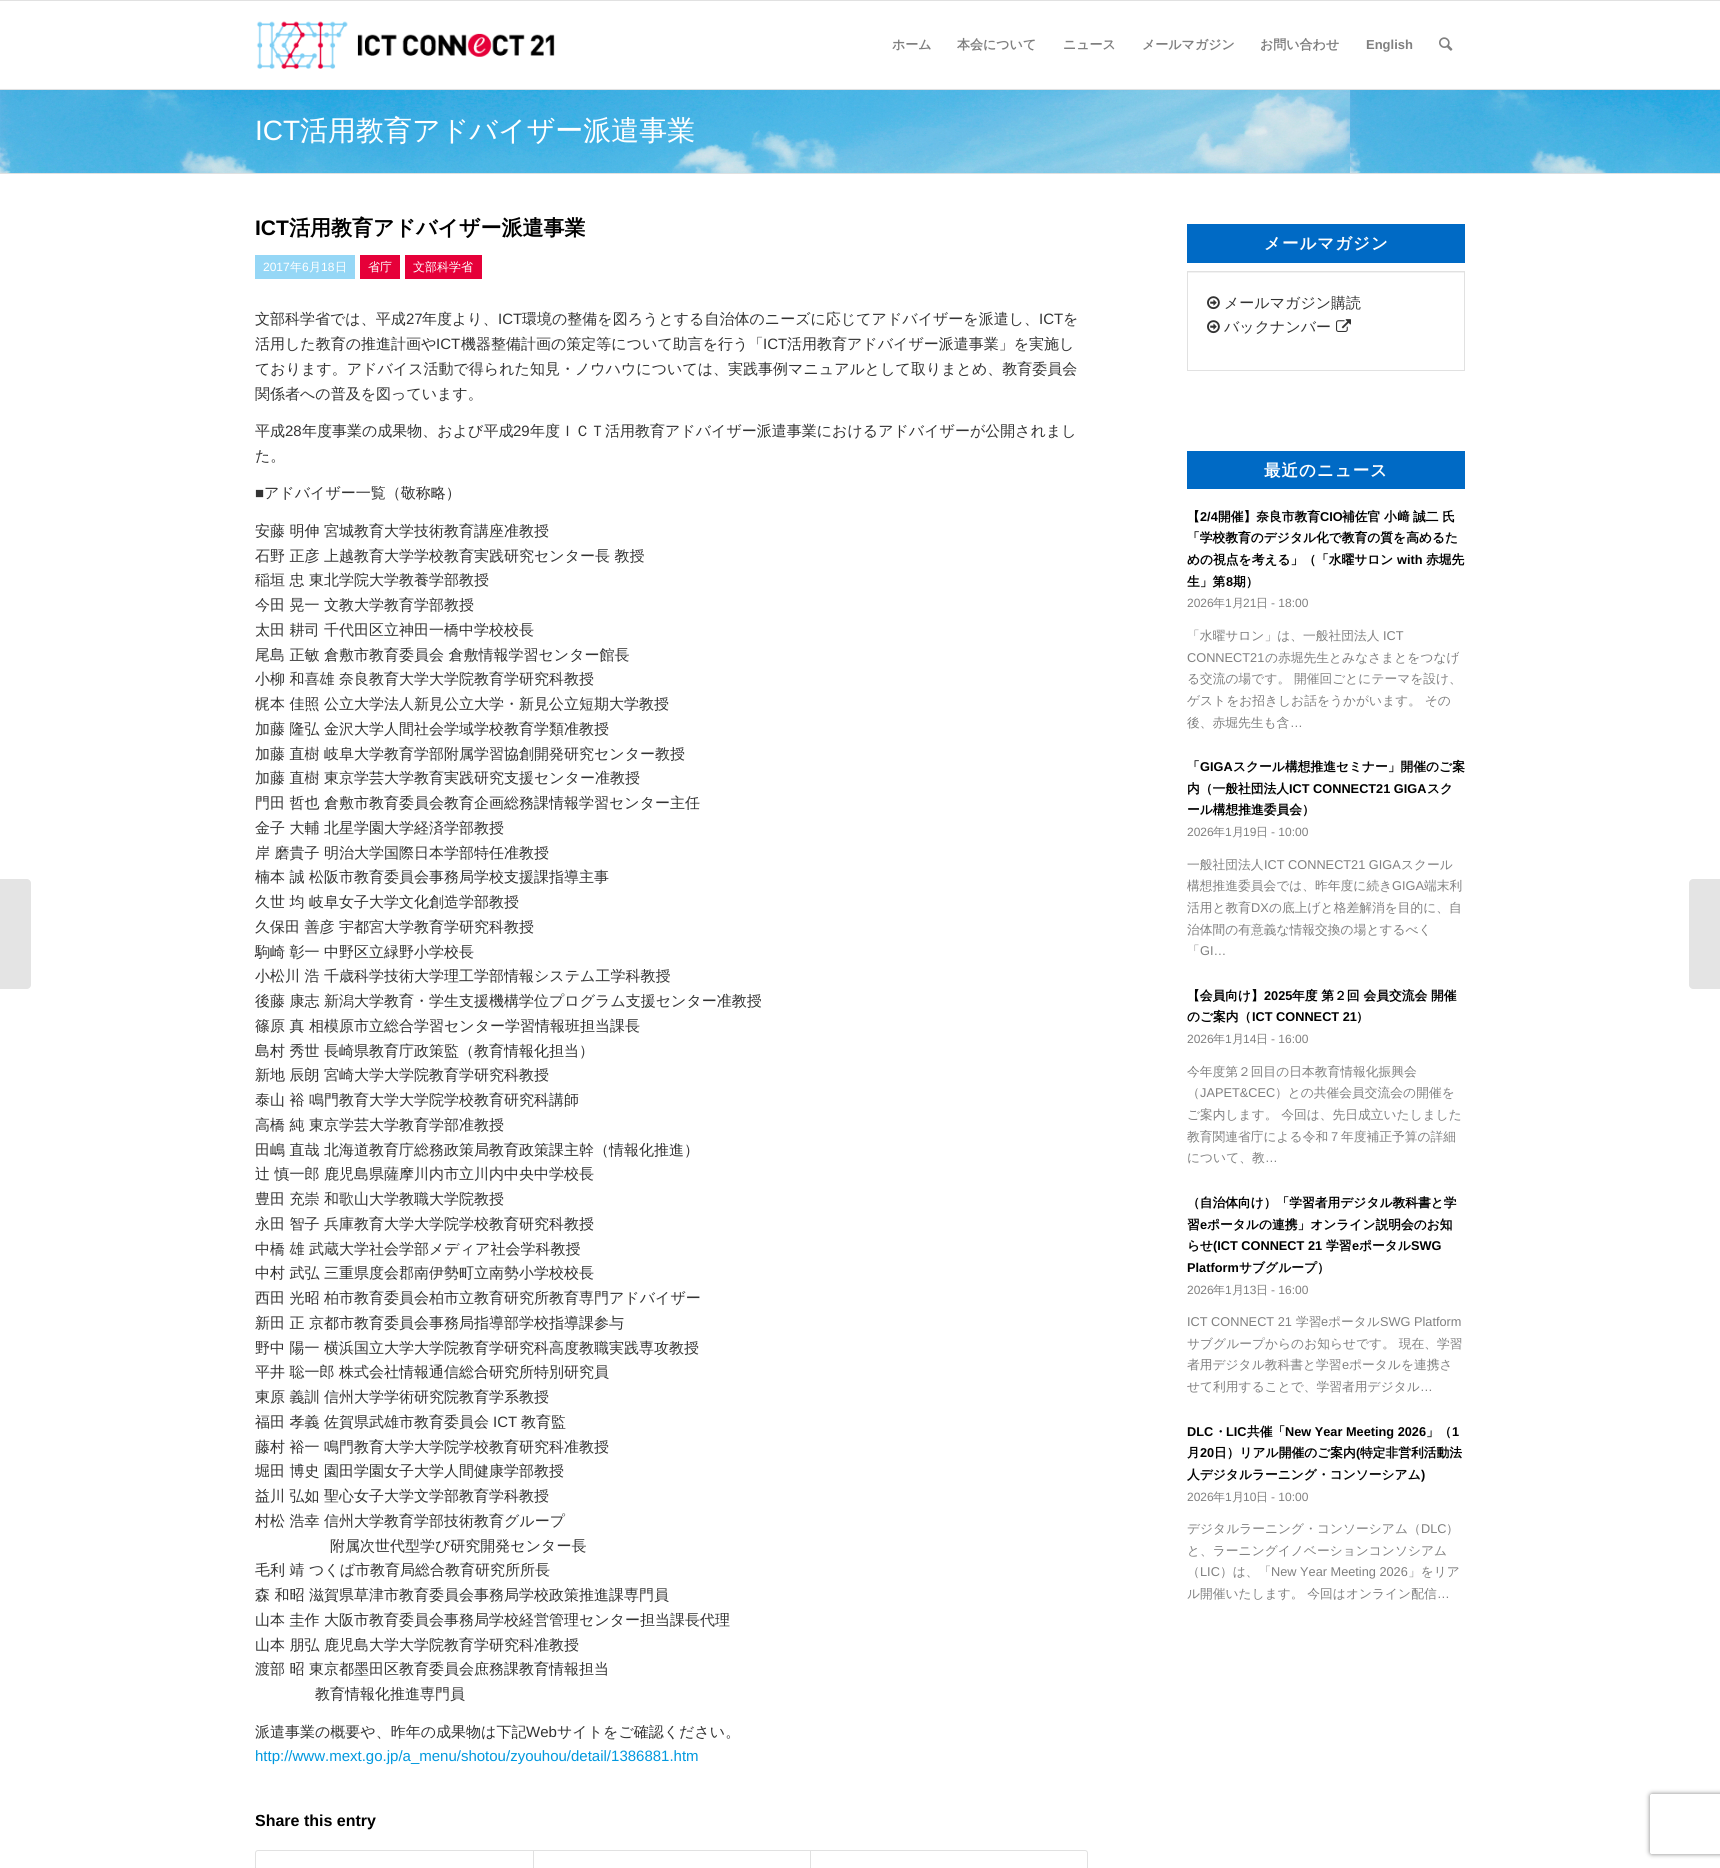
import math
import cairo



def draw_spaced(context, x, y, s, letter, word):
    context.move_to(x, y)
    for ch in s:
        context.show_text(ch)
        context.rel_move_to(letter + word * (ch == ' '), 0)


def rounded_rect(context, x, y, w, h, r):
    context.new_sub_path()
    for i, (u, v) in enumerate([(x + w - r, y + h - r), (x + r, y + h - r), (x + r, y + r), (x + w - r, y + r)]):
        context.arc(u, v, r, i * math.pi / 2, (i + 1) * math.pi / 2)
    context.close_path()


def draw_shadow(context, x, y, w, h, r, blur, alpha):
    context.push_group_with_content(cairo.Content.ALPHA)
    context.set_operator(cairo.Operator.SOURCE)
    for i in range(15, -16, -2):
        e = blur * i / 6
        if min(w, h) + 2 * e > 0:
            context.set_source_rgba(0, 0, 0, alpha * math.erfc((i - 1) / 8.5) / 2)
            rounded_rect(context, x - e, y - e, w + 2 * e, h + 2 * e, max(0, min(r + e + blur * .6, min(w, h) / 2 + e)))
            context.fill()
    context.mask(context.pop_group())


def draw_image(context, path, x, y, w, h):
    context.save()
    context.set_source_surface(cairo.ImageSurface.create_from_png(path), x, y)
    context.rectangle(x, y, w, h)
    context.fill()
    context.restore()


def draw(context):
    context.set_source_rgb(1, 1, 1)
    context.paint()
    context.set_source_rgb(225 / 255, 225 / 255, 225 / 255)
    context.rectangle(0, 0, 1720, 1)
    context.fill()
    context.rectangle(0, 89, 1720, 1)
    context.fill()
    draw_image(context, "images/1.png", 256, 21, 299, 48)
    draw_image(context, "images/2.png", 1439, 37, 14, 14)
    context.rectangle(0, 88, 1720, 1)
    context.fill()
    context.set_source_rgba(1, 1, 1, 0.95)
    context.rectangle(0, 88, 1720, 1)
    context.fill()
    context.set_source_rgb(228 / 255, 228 / 255, 228 / 255)
    context.new_path()
    context.move_to(0, 879)
    context.line_to(27, 879)
    context.curve_to(29, 879, 31, 881, 31, 883)
    context.line_to(31, 985)
    context.curve_to(31, 987, 29, 989, 27, 989)
    context.line_to(0, 989)
    context.close_path()
    context.fill()
    draw_image(context, "images/3.png", 0, 90, 1720, 83)
    context.set_source_rgb(225 / 255, 225 / 255, 225 / 255)
    context.rectangle(0, 173, 1720, 1)
    context.fill()
    context.set_source_rgb(149 / 255, 215 / 255, 246 / 255)
    context.rectangle(255, 255, 100, 24)
    context.fill()
    context.set_source_rgb(230 / 255, 0, 57 / 255)
    context.rectangle(360, 255, 40, 24)
    context.fill()
    context.rectangle(405, 255, 77, 24)
    context.fill()
    rounded_rect(context, 255.5, 1850.5, 832, 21, 2.5)
    context.set_source_rgb(225 / 255, 225 / 255, 225 / 255)
    context.set_line_width(1)
    context.stroke()
    context.rectangle(533, 1851, 1, 17)
    context.fill()
    context.rectangle(810, 1851, 1, 17)
    context.fill()
    context.set_source_rgb(0, 106 / 255, 197 / 255)
    context.rectangle(1187, 224, 278, 39)
    context.fill()
    context.set_source_rgb(242 / 255, 242 / 255, 242 / 255)
    context.rectangle(1188, 272, 276, 1)
    context.fill()
    context.rectangle(1187.5, 271.5, 277, 99)
    context.set_source_rgb(225 / 255, 225 / 255, 225 / 255)
    context.stroke()
    draw_image(context, "images/4.png", 1207, 296, 13, 14)
    draw_image(context, "images/4.png", 1207, 320, 13, 14)
    draw_image(context, "images/5.png", 1336, 319, 15, 13)
    context.set_source_rgb(0, 106 / 255, 197 / 255)
    context.rectangle(1187, 451, 278, 38)
    context.fill()
    context.set_source_rgb(228 / 255, 228 / 255, 228 / 255)
    context.new_path()
    context.move_to(1693, 879)
    context.line_to(1720, 879)
    context.line_to(1720, 989)
    context.line_to(1693, 989)
    context.curve_to(1691, 989, 1689, 987, 1689, 985)
    context.line_to(1689, 883)
    context.curve_to(1689, 881, 1691, 879, 1693, 879)
    context.close_path()
    context.fill()
    context.save()
    context.set_fill_rule(cairo.FillRule.EVEN_ODD)
    context.new_path()
    context.move_to(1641, 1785)
    context.line_to(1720, 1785)
    context.line_to(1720, 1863)
    context.line_to(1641, 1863)
    context.close_path()
    context.move_to(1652, 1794)
    context.line_to(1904, 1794)
    context.curve_to(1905, 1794, 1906, 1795, 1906, 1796)
    context.line_to(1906, 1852)
    context.curve_to(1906, 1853, 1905, 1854, 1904, 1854)
    context.line_to(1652, 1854)
    context.curve_to(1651, 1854, 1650, 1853, 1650, 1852)
    context.line_to(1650, 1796)
    context.curve_to(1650, 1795, 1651, 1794, 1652, 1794)
    context.close_path()
    context.clip()
    context.set_source_rgb(128 / 255, 128 / 255, 128 / 255)
    draw_shadow(context, 1650, 1794, 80, 60, 2, 2.5, 1)
    context.restore()
    context.select_font_face("WenQuanYi Zen Hei", cairo.FontSlant.NORMAL, cairo.FontWeight.BOLD)
    context.set_font_size(13)
    context.set_source_rgb(127 / 255, 127 / 255, 127 / 255)
    context.move_to(892, 49)
    context.show_text("ホーム")
    context.move_to(957, 49)
    context.show_text("本会について")
    context.move_to(1063, 49)
    context.show_text("ニュース")
    context.move_to(1142, 49)
    context.show_text("メールマガジン")
    context.move_to(1260, 49)
    context.show_text("お問い合わせ")
    context.select_font_face("Liberation Sans", cairo.FontSlant.NORMAL, cairo.FontWeight.BOLD)
    context.move_to(1366, 49)
    context.show_text("English")
    context.select_font_face("Liberation Sans")
    context.set_font_size(28)
    context.set_source_rgb(1, 1, 1)
    context.move_to(255, 140)
    context.show_text("ICT")
    context.select_font_face("WenQuanYi Zen Hei Medium")
    context.move_to(300, 140)
    context.show_text("活用教育アドバイザー派遣事業")
    context.select_font_face("Liberation Sans", cairo.FontSlant.NORMAL, cairo.FontWeight.BOLD)
    context.set_font_size(21)
    context.set_source_rgb(0, 0, 0)
    context.move_to(255, 235)
    context.show_text("ICT")
    context.select_font_face("WenQuanYi Zen Hei", cairo.FontSlant.NORMAL, cairo.FontWeight.BOLD)
    context.move_to(289, 235)
    context.show_text("活用教育アドバイザー派遣事業")
    context.select_font_face("Liberation Sans")
    context.set_font_size(12)
    context.set_source_rgb(1, 1, 1)
    context.move_to(263, 271)
    context.show_text("2017")
    context.select_font_face("WenQuanYi Zen Hei Medium")
    context.move_to(290, 271)
    context.show_text("年")
    context.select_font_face("Liberation Sans")
    context.move_to(302, 271)
    context.show_text("6")
    context.select_font_face("WenQuanYi Zen Hei Medium")
    context.move_to(309, 271)
    context.show_text("月")
    context.select_font_face("Liberation Sans")
    context.move_to(321, 271)
    context.show_text("18")
    context.select_font_face("WenQuanYi Zen Hei Medium")
    context.move_to(335, 271)
    context.show_text("日")
    context.move_to(368, 271)
    context.show_text("省庁")
    context.move_to(413, 271)
    context.show_text("文部科学省")
    context.set_font_size(15)
    context.set_source_rgb(51 / 255, 51 / 255, 51 / 255)
    context.move_to(255, 324)
    context.show_text("文部科学省では、平成")
    context.select_font_face("Liberation Sans")
    context.move_to(406, 324)
    context.show_text("27")
    context.select_font_face("WenQuanYi Zen Hei Medium")
    context.move_to(422, 324)
    context.show_text("年度より、")
    context.select_font_face("Liberation Sans")
    context.move_to(498, 324)
    context.show_text("ICT")
    context.select_font_face("WenQuanYi Zen Hei Medium")
    context.move_to(522, 324)
    context.show_text("環境の整備を図ろうとする自治体のニーズに応じてアドバイザーを派遣し、")
    context.select_font_face("Liberation Sans")
    context.move_to(1039, 324)
    context.show_text("ICT")
    context.select_font_face("WenQuanYi Zen Hei Medium")
    context.move_to(1063, 324)
    context.show_text("を")
    context.move_to(255, 349)
    context.show_text("活用した教育の推進計画や")
    context.select_font_face("Liberation Sans")
    context.move_to(436, 349)
    context.show_text("ICT")
    context.select_font_face("WenQuanYi Zen Hei Medium")
    context.move_to(461, 349)
    context.show_text("機器整備計画の策定等について助言を行う「")
    context.select_font_face("Liberation Sans")
    context.move_to(763, 349)
    context.show_text("ICT")
    context.select_font_face("WenQuanYi Zen Hei Medium")
    context.move_to(787, 349)
    context.show_text("活用教育アドバイザー派遣事業」を実施し")
    context.move_to(255, 374)
    context.show_text("ております。アドバイス活動で得られた知見・ノウハウについては、実践事例マニュアルとして取りまとめ、教育委員会")
    context.move_to(255, 399)
    context.show_text("関係者への普及を図っています。")
    context.move_to(255, 436)
    context.show_text("平成")
    context.select_font_face("Liberation Sans")
    context.move_to(285, 436)
    context.show_text("28")
    context.select_font_face("WenQuanYi Zen Hei Medium")
    context.move_to(302, 436)
    context.show_text("年度事業の成果物、および平成")
    context.select_font_face("Liberation Sans")
    context.move_to(513, 436)
    context.show_text("29")
    context.select_font_face("WenQuanYi Zen Hei Medium")
    context.move_to(530, 436)
    context.show_text("年度ＩＣＴ活用教育アドバイザー派遣事業におけるアドバイザーが公開されまし")
    context.move_to(255, 461)
    context.show_text("た。")
    context.select_font_face("Liberation Sans")
    context.move_to(255, 498)
    context.show_text("■")
    context.select_font_face("WenQuanYi Zen Hei Medium")
    context.move_to(264, 498)
    context.show_text("アドバイザー一覧（敬称略）")
    context.move_to(255, 536)
    context.show_text("安藤 明伸 宮城教育大学技術教育講座准教授")
    context.move_to(255, 561)
    context.show_text("石野 正彦 上越教育大学学校教育実践研究センター長 教授")
    context.move_to(255, 585)
    context.show_text("稲垣 忠 東北学院大学教養学部教授")
    context.move_to(255, 610)
    context.show_text("今田 晃一 文教大学教育学部教授")
    context.move_to(255, 635)
    context.show_text("太田 耕司 千代田区立神田一橋中学校校長")
    context.move_to(255, 660)
    context.show_text("尾島 正敏 倉敷市教育委員会 倉敷情報学習センター館長")
    context.move_to(255, 684)
    context.show_text("小柳 和喜雄 奈良教育大学大学院教育学研究科教授")
    context.move_to(255, 709)
    context.show_text("梶本 佳照 公立大学法人新見公立大学・新見公立短期大学教授")
    context.move_to(255, 734)
    context.show_text("加藤 隆弘 金沢大学人間社会学域学校教育学類准教授")
    context.move_to(255, 759)
    context.show_text("加藤 直樹 岐阜大学教育学部附属学習協創開発研究センター教授")
    context.move_to(255, 783)
    context.show_text("加藤 直樹 東京学芸大学教育実践研究支援センター准教授")
    context.move_to(255, 808)
    context.show_text("門田 哲也 倉敷市教育委員会教育企画総務課情報学習センター主任")
    context.move_to(255, 833)
    context.show_text("金子 大輔 北星学園大学経済学部教授")
    context.move_to(255, 858)
    context.show_text("岸 磨貴子 明治大学国際日本学部特任准教授")
    context.move_to(255, 882)
    context.show_text("楠本 誠 松阪市教育委員会事務局学校支援課指導主事")
    context.move_to(255, 907)
    context.show_text("久世 均 岐阜女子大学文化創造学部教授")
    context.move_to(255, 932)
    context.show_text("久保田 善彦 宇都宮大学教育学研究科教授")
    context.move_to(255, 957)
    context.show_text("駒崎 彰一 中野区立緑野小学校長")
    context.move_to(255, 981)
    context.show_text("小松川 浩 千歳科学技術大学理工学部情報システム工学科教授")
    context.move_to(255, 1006)
    context.show_text("後藤 康志 新潟大学教育・学生支援機構学位プログラム支援センター准教授")
    context.move_to(255, 1031)
    context.show_text("篠原 真 相模原市立総合学習センター学習情報班担当課長")
    context.move_to(255, 1056)
    context.show_text("島村 秀世 長崎県教育庁政策監（教育情報化担当）")
    context.move_to(255, 1080)
    context.show_text("新地 辰朗 宮崎大学大学院教育学研究科教授")
    context.move_to(255, 1105)
    context.show_text("泰山 裕 鳴門教育大学大学院学校教育研究科講師")
    context.move_to(255, 1130)
    context.show_text("高橋 純 東京学芸大学教育学部准教授")
    context.move_to(255, 1155)
    context.show_text("田嶋 直哉 北海道教育庁総務政策局教育政策課主幹（情報化推進）")
    context.move_to(255, 1179)
    context.show_text("辻 慎一郎 鹿児島県薩摩川内市立川内中央中学校長")
    context.move_to(255, 1204)
    context.show_text("豊田 充崇 和歌山大学教職大学院教授")
    context.move_to(255, 1229)
    context.show_text("永田 智子 兵庫教育大学大学院学校教育研究科教授")
    context.move_to(255, 1254)
    context.show_text("中橋 雄 武蔵大学社会学部メディア社会学科教授")
    context.move_to(255, 1278)
    context.show_text("中村 武弘 三重県度会郡南伊勢町立南勢小学校校長")
    context.move_to(255, 1303)
    context.show_text("西田 光昭 柏市教育委員会柏市立教育研究所教育専門アドバイザー")
    context.move_to(255, 1328)
    context.show_text("新田 正 京都市教育委員会事務局指導部学校指導課参与")
    context.move_to(255, 1353)
    context.show_text("野中 陽一 横浜国立大学大学院教育学研究科高度教職実践専攻教授")
    context.move_to(255, 1377)
    context.show_text("平井 聡一郎 株式会社情報通信総合研究所特別研究員")
    context.move_to(255, 1402)
    context.show_text("東原 義訓 信州大学学術研究院教育学系教授")
    context.move_to(255, 1427)
    context.show_text("福田 孝義 佐賀県武雄市教育委員会")
    context.select_font_face("Liberation Sans")
    context.move_to(493, 1427)
    context.show_text("ICT")
    context.select_font_face("WenQuanYi Zen Hei Medium")
    context.move_to(521, 1427)
    context.show_text("教育監")
    context.move_to(255, 1452)
    context.show_text("藤村 裕一 鳴門教育大学大学院学校教育研究科准教授")
    context.move_to(255, 1476)
    context.show_text("堀田 博史 園田学園女子大学人間健康学部教授")
    context.move_to(255, 1501)
    context.show_text("益川 弘如 聖心女子大学文学部教育学科教授")
    context.move_to(255, 1526)
    context.show_text("村松 浩幸 信州大学教育学部技術教育グループ")
    context.move_to(330, 1551)
    context.show_text("附属次世代型学び研究開発センター長")
    context.move_to(255, 1575)
    context.show_text("毛利 靖 つくば市教育局総合教育研究所所長")
    context.move_to(255, 1600)
    context.show_text("森 和昭 滋賀県草津市教育委員会事務局学校政策推進課専門員")
    context.move_to(255, 1625)
    context.show_text("山本 圭作 大阪市教育委員会事務局学校経営管理センター担当課長代理")
    context.move_to(255, 1650)
    context.show_text("山本 朋弘 鹿児島大学大学院教育学研究科准教授")
    context.move_to(255, 1674)
    context.show_text("渡部 昭 東京都墨田区教育委員会庶務課教育情報担当")
    context.move_to(315, 1699)
    context.show_text("教育情報化推進専門員")
    context.move_to(255, 1737)
    context.show_text("派遣事業の概要や、昨年の成果物は下記")
    context.select_font_face("Liberation Sans")
    context.move_to(526, 1737)
    context.show_text("Web")
    context.select_font_face("WenQuanYi Zen Hei Medium")
    context.move_to(557, 1737)
    context.show_text("サイトをご確認ください。")
    context.select_font_face("Liberation Sans")
    context.set_source_rgb(0, 152 / 255, 222 / 255)
    context.move_to(255, 1761)
    context.show_text("http://www.mext.go.jp/a_menu/shotou/zyouhou/detail/1386881.htm")
    context.select_font_face("Liberation Sans", cairo.FontSlant.NORMAL, cairo.FontWeight.BOLD)
    context.set_font_size(16)
    context.set_source_rgb(0, 0, 0)
    context.move_to(255, 1826)
    context.show_text("Share this entry")
    context.select_font_face("WenQuanYi Zen Hei", cairo.FontSlant.NORMAL, cairo.FontWeight.BOLD)
    context.set_font_size(16.5)
    context.set_source_rgb(1, 1, 1)
    draw_spaced(context, 1264, 249, "メールマガジン", 1, 0)
    context.select_font_face("WenQuanYi Zen Hei Medium")
    context.set_font_size(15)
    context.set_source_rgb(51 / 255, 51 / 255, 51 / 255)
    context.move_to(1224, 308)
    context.show_text("メールマガジン購読")
    context.move_to(1224, 332)
    context.show_text("バックナンバー")
    context.select_font_face("WenQuanYi Zen Hei", cairo.FontSlant.NORMAL, cairo.FontWeight.BOLD)
    context.set_font_size(16.5)
    context.set_source_rgb(1, 1, 1)
    draw_spaced(context, 1264, 476, "最近のニュース", 1, 0)
    context.set_font_size(12.75)
    context.set_source_rgb(0, 0, 0)
    context.move_to(1187, 521)
    context.show_text("【")
    context.select_font_face("Liberation Sans", cairo.FontSlant.NORMAL, cairo.FontWeight.BOLD)
    context.move_to(1200, 521)
    context.show_text("2/4")
    context.select_font_face("WenQuanYi Zen Hei", cairo.FontSlant.NORMAL, cairo.FontWeight.BOLD)
    context.move_to(1218, 521)
    context.show_text("開催】奈良市教育")
    context.select_font_face("Liberation Sans", cairo.FontSlant.NORMAL, cairo.FontWeight.BOLD)
    context.move_to(1320, 521)
    context.show_text("CIO")
    context.select_font_face("WenQuanYi Zen Hei", cairo.FontSlant.NORMAL, cairo.FontWeight.BOLD)
    context.move_to(1342, 521)
    context.show_text("補佐官 小")
    context.select_font_face("IPAPGothic", cairo.FontSlant.NORMAL, cairo.FontWeight.BOLD)
    context.move_to(1397, 521)
    context.show_text("﨑")
    context.select_font_face("WenQuanYi Zen Hei", cairo.FontSlant.NORMAL, cairo.FontWeight.BOLD)
    context.move_to(1413, 521)
    context.show_text("誠二 氏")
    context.move_to(1187, 542)
    context.show_text("「学校教育のデジタル化で教育の質を高めるた")
    context.move_to(1187, 564)
    context.show_text("めの視点を考える」（「水曜サロン")
    context.select_font_face("Liberation Sans", cairo.FontSlant.NORMAL, cairo.FontWeight.BOLD)
    context.move_to(1397, 564)
    context.show_text("with")
    context.select_font_face("WenQuanYi Zen Hei", cairo.FontSlant.NORMAL, cairo.FontWeight.BOLD)
    context.move_to(1426, 564)
    context.show_text("赤堀先")
    context.move_to(1187, 586)
    context.show_text("生」第")
    context.select_font_face("Liberation Sans", cairo.FontSlant.NORMAL, cairo.FontWeight.BOLD)
    context.move_to(1226, 586)
    context.show_text("8")
    context.select_font_face("WenQuanYi Zen Hei", cairo.FontSlant.NORMAL, cairo.FontWeight.BOLD)
    context.move_to(1233, 586)
    context.show_text("期）")
    context.select_font_face("Liberation Sans")
    context.set_font_size(12)
    context.set_source_rgb(127 / 255, 127 / 255, 127 / 255)
    context.move_to(1187, 607)
    context.show_text("2026")
    context.select_font_face("WenQuanYi Zen Hei Medium")
    context.move_to(1213, 607)
    context.show_text("年")
    context.select_font_face("Liberation Sans")
    context.move_to(1225, 607)
    context.show_text("1")
    context.select_font_face("WenQuanYi Zen Hei Medium")
    context.move_to(1232, 607)
    context.show_text("月")
    context.select_font_face("Liberation Sans")
    context.move_to(1243, 607)
    context.show_text("21")
    context.select_font_face("WenQuanYi Zen Hei Medium")
    context.move_to(1256, 607)
    context.show_text("日")
    context.select_font_face("Liberation Sans")
    context.move_to(1271, 607)
    context.show_text("- 18:00")
    context.select_font_face("WenQuanYi Zen Hei Medium")
    context.set_font_size(12.75)
    context.move_to(1187, 640)
    context.show_text("「水曜サロン」は、一般社団法人")
    context.select_font_face("Liberation Sans")
    context.move_to(1383, 640)
    context.show_text("ICT")
    context.move_to(1187, 662)
    context.show_text("CONNECT21")
    context.select_font_face("WenQuanYi Zen Hei Medium")
    context.move_to(1265, 662)
    context.show_text("の赤堀先生とみなさまとをつなげ")
    context.move_to(1187, 683)
    context.show_text("る交流の場です。 開催回ごとにテーマを設け、")
    context.move_to(1187, 705)
    context.show_text("ゲストをお招きしお話をうかがいます。 その")
    context.move_to(1187, 727)
    context.show_text("後、赤堀先生も含")
    context.select_font_face("Liberation Sans")
    context.move_to(1290, 727)
    context.show_text("…")
    context.select_font_face("WenQuanYi Zen Hei", cairo.FontSlant.NORMAL, cairo.FontWeight.BOLD)
    context.set_source_rgb(0, 0, 0)
    context.move_to(1187, 771)
    context.show_text("「")
    context.select_font_face("Liberation Sans", cairo.FontSlant.NORMAL, cairo.FontWeight.BOLD)
    context.move_to(1200, 771)
    context.show_text("GIGA")
    context.select_font_face("WenQuanYi Zen Hei", cairo.FontSlant.NORMAL, cairo.FontWeight.BOLD)
    context.move_to(1233, 771)
    context.show_text("スクール構想推進セミナー」開催のご案")
    context.move_to(1187, 793)
    context.show_text("内（一般社団法人")
    context.select_font_face("Liberation Sans", cairo.FontSlant.NORMAL, cairo.FontWeight.BOLD)
    context.move_to(1289, 793)
    context.show_text("ICT CONNECT21 GIGA")
    context.select_font_face("WenQuanYi Zen Hei", cairo.FontSlant.NORMAL, cairo.FontWeight.BOLD)
    context.move_to(1427, 793)
    context.show_text("スク")
    context.move_to(1187, 814)
    context.show_text("ール構想推進委員会）")
    context.select_font_face("Liberation Sans")
    context.set_font_size(12)
    context.set_source_rgb(127 / 255, 127 / 255, 127 / 255)
    context.move_to(1187, 836)
    context.show_text("2026")
    context.select_font_face("WenQuanYi Zen Hei Medium")
    context.move_to(1213, 836)
    context.show_text("年")
    context.select_font_face("Liberation Sans")
    context.move_to(1225, 836)
    context.show_text("1")
    context.select_font_face("WenQuanYi Zen Hei Medium")
    context.move_to(1232, 836)
    context.show_text("月")
    context.select_font_face("Liberation Sans")
    context.move_to(1243, 836)
    context.show_text("19")
    context.select_font_face("WenQuanYi Zen Hei Medium")
    context.move_to(1256, 836)
    context.show_text("日")
    context.select_font_face("Liberation Sans")
    context.move_to(1271, 836)
    context.show_text("- 10:00")
    context.select_font_face("WenQuanYi Zen Hei Medium")
    context.set_font_size(12.75)
    context.move_to(1187, 869)
    context.show_text("一般社団法人")
    context.select_font_face("Liberation Sans")
    context.move_to(1264, 869)
    context.show_text("ICT CONNECT21 GIGA")
    context.select_font_face("WenQuanYi Zen Hei Medium")
    context.move_to(1401, 869)
    context.show_text("スクール")
    context.move_to(1187, 890)
    context.show_text("構想推進委員会では、昨年度に続き")
    context.select_font_face("Liberation Sans")
    context.move_to(1392, 890)
    context.show_text("GIGA")
    context.select_font_face("WenQuanYi Zen Hei Medium")
    context.move_to(1424, 890)
    context.show_text("端末利")
    context.move_to(1187, 912)
    context.show_text("活用と教育")
    context.select_font_face("Liberation Sans")
    context.move_to(1251, 912)
    context.show_text("DX")
    context.select_font_face("WenQuanYi Zen Hei Medium")
    context.move_to(1269, 912)
    context.show_text("の底上げと格差解消を目的に、自")
    context.move_to(1187, 934)
    context.show_text("治体間の有意義な情報交換の場とするべく")
    context.move_to(1187, 955)
    context.show_text("「")
    context.select_font_face("Liberation Sans")
    context.move_to(1200, 955)
    context.show_text("GI…")
    context.select_font_face("WenQuanYi Zen Hei", cairo.FontSlant.NORMAL, cairo.FontWeight.BOLD)
    context.set_source_rgb(0, 0, 0)
    context.move_to(1187, 1000)
    context.show_text("【会員向け】")
    context.select_font_face("Liberation Sans", cairo.FontSlant.NORMAL, cairo.FontWeight.BOLD)
    context.move_to(1264, 1000)
    context.show_text("2025")
    context.select_font_face("WenQuanYi Zen Hei", cairo.FontSlant.NORMAL, cairo.FontWeight.BOLD)
    context.move_to(1292, 1000)
    context.show_text("年度 第２回 会員交流会 開催")
    context.move_to(1187, 1021)
    context.show_text("のご案内（")
    context.select_font_face("Liberation Sans", cairo.FontSlant.NORMAL, cairo.FontWeight.BOLD)
    context.move_to(1252, 1021)
    context.show_text("ICT CONNECT 21")
    context.select_font_face("WenQuanYi Zen Hei", cairo.FontSlant.NORMAL, cairo.FontWeight.BOLD)
    context.move_to(1356, 1021)
    context.show_text("）")
    context.select_font_face("Liberation Sans")
    context.set_font_size(12)
    context.set_source_rgb(127 / 255, 127 / 255, 127 / 255)
    context.move_to(1187, 1043)
    context.show_text("2026")
    context.select_font_face("WenQuanYi Zen Hei Medium")
    context.move_to(1213, 1043)
    context.show_text("年")
    context.select_font_face("Liberation Sans")
    context.move_to(1225, 1043)
    context.show_text("1")
    context.select_font_face("WenQuanYi Zen Hei Medium")
    context.move_to(1232, 1043)
    context.show_text("月")
    context.select_font_face("Liberation Sans")
    context.move_to(1243, 1043)
    context.show_text("14")
    context.select_font_face("WenQuanYi Zen Hei Medium")
    context.move_to(1256, 1043)
    context.show_text("日")
    context.select_font_face("Liberation Sans")
    context.move_to(1271, 1043)
    context.show_text("- 16:00")
    context.select_font_face("WenQuanYi Zen Hei Medium")
    context.set_font_size(12.75)
    context.move_to(1187, 1076)
    context.show_text("今年度第２回目の日本教育情報化振興会")
    context.move_to(1187, 1097)
    context.show_text("（")
    context.select_font_face("Liberation Sans")
    context.move_to(1200, 1097)
    context.show_text("JAPET&CEC")
    context.select_font_face("WenQuanYi Zen Hei Medium")
    context.move_to(1275, 1097)
    context.show_text("）との共催会員交流会の開催を")
    context.move_to(1187, 1119)
    context.show_text("ご案内します。 今回は、先日成立いたしました")
    context.move_to(1187, 1141)
    context.show_text("教育関連省庁による令和７年度補正予算の詳細")
    context.move_to(1187, 1162)
    context.show_text("について、教")
    context.select_font_face("Liberation Sans")
    context.move_to(1265, 1162)
    context.show_text("…")
    context.select_font_face("WenQuanYi Zen Hei", cairo.FontSlant.NORMAL, cairo.FontWeight.BOLD)
    context.set_source_rgb(0, 0, 0)
    context.move_to(1187, 1207)
    context.show_text("（自治体向け）「学習者用デジタル教科書と学")
    context.move_to(1187, 1229)
    context.show_text("習")
    context.select_font_face("Liberation Sans", cairo.FontSlant.NORMAL, cairo.FontWeight.BOLD)
    context.move_to(1200, 1229)
    context.show_text("e")
    context.select_font_face("WenQuanYi Zen Hei", cairo.FontSlant.NORMAL, cairo.FontWeight.BOLD)
    context.move_to(1207, 1229)
    context.show_text("ポータルの連携」オンライン説明会のお知")
    context.move_to(1187, 1250)
    context.show_text("らせ")
    context.select_font_face("Liberation Sans", cairo.FontSlant.NORMAL, cairo.FontWeight.BOLD)
    context.move_to(1213, 1250)
    context.show_text("(ICT CONNECT 21")
    context.select_font_face("WenQuanYi Zen Hei", cairo.FontSlant.NORMAL, cairo.FontWeight.BOLD)
    context.move_to(1326, 1250)
    context.show_text("学習")
    context.select_font_face("Liberation Sans", cairo.FontSlant.NORMAL, cairo.FontWeight.BOLD)
    context.move_to(1352, 1250)
    context.show_text("e")
    context.select_font_face("WenQuanYi Zen Hei", cairo.FontSlant.NORMAL, cairo.FontWeight.BOLD)
    context.move_to(1359, 1250)
    context.show_text("ポータル")
    context.select_font_face("Liberation Sans", cairo.FontSlant.NORMAL, cairo.FontWeight.BOLD)
    context.move_to(1411, 1250)
    context.show_text("SWG")
    context.move_to(1187, 1272)
    context.show_text("Platform")
    context.select_font_face("WenQuanYi Zen Hei", cairo.FontSlant.NORMAL, cairo.FontWeight.BOLD)
    context.move_to(1239, 1272)
    context.show_text("サブグループ）")
    context.select_font_face("Liberation Sans")
    context.set_font_size(12)
    context.set_source_rgb(127 / 255, 127 / 255, 127 / 255)
    context.move_to(1187, 1294)
    context.show_text("2026")
    context.select_font_face("WenQuanYi Zen Hei Medium")
    context.move_to(1213, 1294)
    context.show_text("年")
    context.select_font_face("Liberation Sans")
    context.move_to(1225, 1294)
    context.show_text("1")
    context.select_font_face("WenQuanYi Zen Hei Medium")
    context.move_to(1232, 1294)
    context.show_text("月")
    context.select_font_face("Liberation Sans")
    context.move_to(1243, 1294)
    context.show_text("13")
    context.select_font_face("WenQuanYi Zen Hei Medium")
    context.move_to(1256, 1294)
    context.show_text("日")
    context.select_font_face("Liberation Sans")
    context.move_to(1271, 1294)
    context.show_text("- 16:00")
    context.set_font_size(12.75)
    context.move_to(1187, 1326)
    context.show_text("ICT CONNECT 21")
    context.select_font_face("WenQuanYi Zen Hei Medium")
    context.move_to(1296, 1326)
    context.show_text("学習")
    context.select_font_face("Liberation Sans")
    context.move_to(1321, 1326)
    context.show_text("e")
    context.select_font_face("WenQuanYi Zen Hei Medium")
    context.move_to(1328, 1326)
    context.show_text("ポータル")
    context.select_font_face("Liberation Sans")
    context.move_to(1380, 1326)
    context.show_text("SWG Platform")
    context.select_font_face("WenQuanYi Zen Hei Medium")
    context.move_to(1187, 1348)
    context.show_text("サブグループからのお知らせです。 現在、学習")
    context.move_to(1187, 1369)
    context.show_text("者用デジタル教科書と学習")
    context.select_font_face("Liberation Sans")
    context.move_to(1342, 1369)
    context.show_text("e")
    context.select_font_face("WenQuanYi Zen Hei Medium")
    context.move_to(1349, 1369)
    context.show_text("ポータルを連携さ")
    context.move_to(1187, 1391)
    context.show_text("せて利用することで、学習者用デジタル")
    context.select_font_face("Liberation Sans")
    context.move_to(1420, 1391)
    context.show_text("…")
    context.select_font_face("Liberation Sans", cairo.FontSlant.NORMAL, cairo.FontWeight.BOLD)
    context.set_source_rgb(0, 0, 0)
    context.move_to(1187, 1436)
    context.show_text("DLC")
    context.select_font_face("WenQuanYi Zen Hei", cairo.FontSlant.NORMAL, cairo.FontWeight.BOLD)
    context.move_to(1214, 1436)
    context.show_text("・")
    context.select_font_face("Liberation Sans", cairo.FontSlant.NORMAL, cairo.FontWeight.BOLD)
    context.move_to(1226, 1436)
    context.show_text("LIC")
    context.select_font_face("WenQuanYi Zen Hei", cairo.FontSlant.NORMAL, cairo.FontWeight.BOLD)
    context.move_to(1247, 1436)
    context.show_text("共催「")
    context.select_font_face("Liberation Sans", cairo.FontSlant.NORMAL, cairo.FontWeight.BOLD)
    context.move_to(1285, 1436)
    context.show_text("New Year Meeting 2026")
    context.select_font_face("WenQuanYi Zen Hei", cairo.FontSlant.NORMAL, cairo.FontWeight.BOLD)
    context.move_to(1426, 1436)
    context.show_text("」（")
    context.select_font_face("Liberation Sans", cairo.FontSlant.NORMAL, cairo.FontWeight.BOLD)
    context.move_to(1452, 1436)
    context.show_text("1")
    context.select_font_face("WenQuanYi Zen Hei", cairo.FontSlant.NORMAL, cairo.FontWeight.BOLD)
    context.move_to(1187, 1457)
    context.show_text("月")
    context.select_font_face("Liberation Sans", cairo.FontSlant.NORMAL, cairo.FontWeight.BOLD)
    context.move_to(1200, 1457)
    context.show_text("20")
    context.select_font_face("WenQuanYi Zen Hei", cairo.FontSlant.NORMAL, cairo.FontWeight.BOLD)
    context.move_to(1214, 1457)
    context.show_text("日）リアル開催のご案内")
    context.select_font_face("Liberation Sans", cairo.FontSlant.NORMAL, cairo.FontWeight.BOLD)
    context.move_to(1356, 1457)
    context.show_text("(")
    context.select_font_face("WenQuanYi Zen Hei", cairo.FontSlant.NORMAL, cairo.FontWeight.BOLD)
    context.move_to(1360, 1457)
    context.show_text("特定非営利活動法")
    context.move_to(1187, 1479)
    context.show_text("人デジタルラーニング・コンソーシアム")
    context.select_font_face("Liberation Sans", cairo.FontSlant.NORMAL, cairo.FontWeight.BOLD)
    context.move_to(1421, 1479)
    context.show_text(")")
    context.select_font_face("Liberation Sans")
    context.set_font_size(12)
    context.set_source_rgb(127 / 255, 127 / 255, 127 / 255)
    context.move_to(1187, 1501)
    context.show_text("2026")
    context.select_font_face("WenQuanYi Zen Hei Medium")
    context.move_to(1213, 1501)
    context.show_text("年")
    context.select_font_face("Liberation Sans")
    context.move_to(1225, 1501)
    context.show_text("1")
    context.select_font_face("WenQuanYi Zen Hei Medium")
    context.move_to(1232, 1501)
    context.show_text("月")
    context.select_font_face("Liberation Sans")
    context.move_to(1243, 1501)
    context.show_text("10")
    context.select_font_face("WenQuanYi Zen Hei Medium")
    context.move_to(1256, 1501)
    context.show_text("日")
    context.select_font_face("Liberation Sans")
    context.move_to(1271, 1501)
    context.show_text("- 10:00")
    context.select_font_face("WenQuanYi Zen Hei Medium")
    context.set_font_size(12.75)
    context.move_to(1187, 1533)
    context.show_text("デジタルラーニング・コンソーシアム（")
    context.select_font_face("Liberation Sans")
    context.move_to(1421, 1533)
    context.show_text("DLC")
    context.select_font_face("WenQuanYi Zen Hei Medium")
    context.move_to(1446, 1533)
    context.show_text("）")
    context.move_to(1187, 1555)
    context.show_text("と、ラーニングイノベーションコンソシアム")
    context.move_to(1187, 1576)
    context.show_text("（")
    context.select_font_face("Liberation Sans")
    context.move_to(1200, 1576)
    context.show_text("LIC")
    context.select_font_face("WenQuanYi Zen Hei Medium")
    context.move_to(1220, 1576)
    context.show_text("）は、「")
    context.select_font_face("Liberation Sans")
    context.move_to(1271, 1576)
    context.show_text("New Year Meeting 2026")
    context.select_font_face("WenQuanYi Zen Hei Medium")
    context.move_to(1408, 1576)
    context.show_text("」をリア")
    context.move_to(1187, 1598)
    context.show_text("ル開催いたします。 今回はオンライン配信")
    context.select_font_face("Liberation Sans")
    context.move_to(1437, 1598)
    context.show_text("…")


surface = cairo.ImageSurface(cairo.Format.RGB24, 1720, 1868)
context = cairo.Context(surface)
options = cairo.FontOptions()
options.set_hint_metrics(cairo.HintMetrics.OFF)
options.set_hint_style(cairo.HintStyle.NONE)
context.set_font_options(options)
context.set_miter_limit(4)
draw(context)
surface.write_to_png("out.png")
